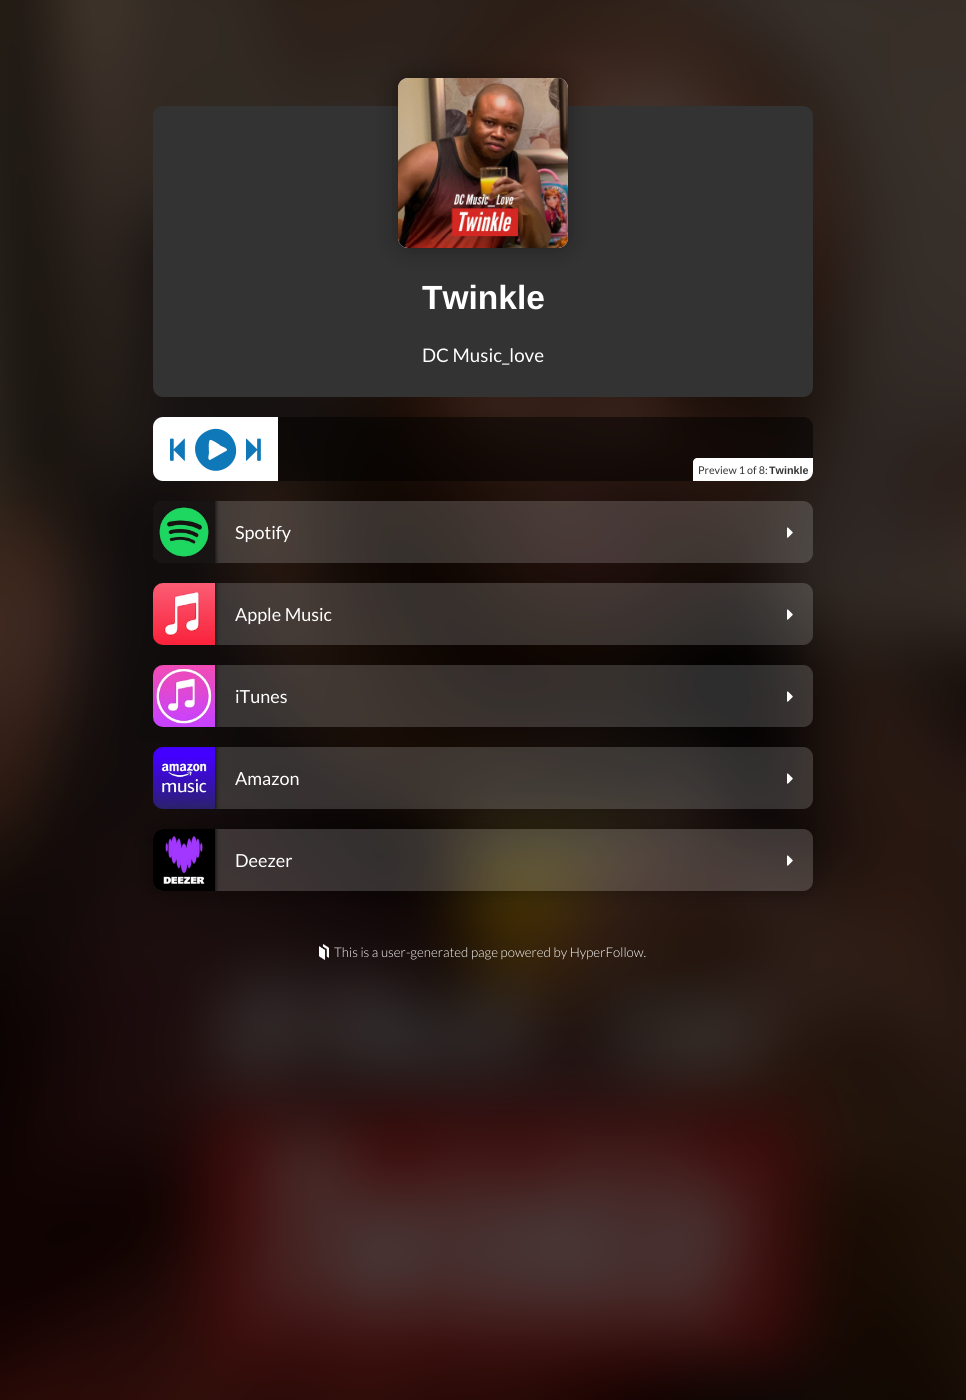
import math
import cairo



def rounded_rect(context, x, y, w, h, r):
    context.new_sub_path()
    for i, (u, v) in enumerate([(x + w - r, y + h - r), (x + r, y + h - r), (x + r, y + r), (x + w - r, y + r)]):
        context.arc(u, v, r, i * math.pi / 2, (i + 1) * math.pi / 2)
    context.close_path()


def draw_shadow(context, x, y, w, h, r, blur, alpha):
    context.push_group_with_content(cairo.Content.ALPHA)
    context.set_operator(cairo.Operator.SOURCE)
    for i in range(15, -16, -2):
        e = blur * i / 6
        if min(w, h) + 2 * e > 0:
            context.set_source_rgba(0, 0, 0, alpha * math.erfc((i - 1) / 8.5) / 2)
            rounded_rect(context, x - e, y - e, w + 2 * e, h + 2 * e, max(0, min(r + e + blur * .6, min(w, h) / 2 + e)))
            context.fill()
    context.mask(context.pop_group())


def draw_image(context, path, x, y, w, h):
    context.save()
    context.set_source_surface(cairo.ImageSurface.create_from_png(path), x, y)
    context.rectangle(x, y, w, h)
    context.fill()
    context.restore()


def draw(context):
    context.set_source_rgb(0, 0, 0)
    context.paint()
    draw_image(context, "images/1.png", 0, 0, 966, 1400)
    context.set_source_rgb(51 / 255, 51 / 255, 51 / 255)
    rounded_rect(context, 153, 106, 660, 291, 10)
    context.fill()
    context.set_source_rgb(0, 0, 0)
    draw_shadow(context, 398, 78, 170, 170, 10, 12.5, 0.35)
    context.set_source_rgb(204 / 255, 204 / 255, 204 / 255)
    rounded_rect(context, 398, 78, 170, 170, 10)
    context.fill()
    draw_image(context, "images/2.png", 398, 78, 170, 170)
    context.set_source_rgb(1, 1, 1)
    context.new_path()
    context.move_to(163, 417)
    context.line_to(278, 417)
    context.line_to(278, 481)
    context.line_to(163, 481)
    context.curve_to(157.5, 481, 153, 476.5, 153, 471)
    context.line_to(153, 427)
    context.curve_to(153, 421.5, 157.5, 417, 163, 417)
    context.close_path()
    context.fill()
    draw_image(context, "images/3.png", 170, 438, 15, 23)
    context.set_source_rgb(15 / 255, 120 / 255, 184 / 255)
    context.new_path()
    context.move_to(205, 432)
    context.curve_to(229, 418, 249, 454, 226, 468)
    context.curve_to(203, 481, 182, 446, 205, 432)
    context.close_path()
    context.move_to(226, 451)
    context.curve_to(230, 449, 221, 446, 221, 446)
    context.curve_to(219, 444, 211, 439, 210, 440)
    context.curve_to(208, 441, 209, 451, 209, 453)
    context.curve_to(209, 454, 207, 460, 210, 460)
    context.close_path()
    context.fill()
    draw_image(context, "images/4.png", 246, 438, 15, 23)
    context.set_source_rgba(0, 0, 0, 0.5)
    context.new_path()
    context.move_to(278, 417)
    context.line_to(803, 417)
    context.curve_to(808.5, 417, 813, 421.5, 813, 427)
    context.line_to(813, 471)
    context.curve_to(813, 476.5, 808.5, 481, 803, 481)
    context.line_to(278, 481)
    context.close_path()
    context.fill()
    context.set_source_rgb(1, 1, 1)
    context.new_path()
    context.move_to(697, 458)
    context.line_to(813, 458)
    context.line_to(813, 471)
    context.curve_to(813, 476.5, 808.5, 481, 803, 481)
    context.line_to(693, 481)
    context.line_to(693, 462)
    context.curve_to(693, 460, 695, 458, 697, 458)
    context.close_path()
    context.fill()
    context.set_source_rgba(1, 1, 1, 0.17)
    rounded_rect(context, 153, 501, 660, 62, 10)
    context.fill()
    context.save()
    rounded_rect(context, 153, 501, 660, 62, 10)
    context.clip()
    context.set_source_rgb(0, 0, 0)
    draw_shadow(context, 153, 501, 62, 62, 0, 2.5, 1)
    context.restore()
    draw_image(context, "images/5.png", 153, 501, 62, 62)
    draw_image(context, "images/6.png", 787, 527, 6, 11)
    rounded_rect(context, 153, 583, 660, 62, 10)
    context.fill()
    context.save()
    rounded_rect(context, 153, 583, 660, 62, 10)
    context.clip()
    context.set_source_rgb(0, 0, 0)
    draw_shadow(context, 153, 583, 62, 62, 0, 2.5, 1)
    context.restore()
    draw_image(context, "images/7.png", 153, 583, 62, 62)
    draw_image(context, "images/8.png", 787, 609, 6, 11)
    rounded_rect(context, 153, 665, 660, 62, 10)
    context.fill()
    context.save()
    rounded_rect(context, 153, 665, 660, 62, 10)
    context.clip()
    context.set_source_rgb(0, 0, 0)
    draw_shadow(context, 153, 665, 62, 62, 0, 2.5, 1)
    context.restore()
    draw_image(context, "images/9.png", 153, 665, 62, 62)
    draw_image(context, "images/10.png", 787, 691, 6, 11)
    rounded_rect(context, 153, 747, 660, 62, 10)
    context.fill()
    context.save()
    rounded_rect(context, 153, 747, 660, 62, 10)
    context.clip()
    context.set_source_rgb(0, 0, 0)
    draw_shadow(context, 153, 747, 62, 62, 0, 2.5, 1)
    context.restore()
    draw_image(context, "images/11.png", 153, 747, 62, 62)
    draw_image(context, "images/12.png", 787, 773, 6, 11)
    context.save()
    context.rectangle(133, 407, 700, 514)
    context.clip()
    context.set_fill_rule(cairo.FillRule.EVEN_ODD)
    context.new_path()
    context.move_to(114, 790)
    context.line_to(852, 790)
    context.line_to(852, 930)
    context.line_to(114, 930)
    context.close_path()
    context.move_to(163, 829)
    context.line_to(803, 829)
    context.curve_to(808.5, 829, 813, 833.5, 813, 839)
    context.line_to(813, 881)
    context.curve_to(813, 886.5, 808.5, 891, 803, 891)
    context.line_to(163, 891)
    context.curve_to(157.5, 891, 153, 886.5, 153, 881)
    context.line_to(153, 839)
    context.curve_to(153, 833.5, 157.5, 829, 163, 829)
    context.close_path()
    context.clip()
    context.set_source_rgb(0, 0, 0)
    draw_shadow(context, 153, 829, 660, 62, 10, 12.5, 0.35)
    context.restore()
    rounded_rect(context, 153, 829, 660, 62, 10)
    context.fill()
    context.save()
    rounded_rect(context, 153, 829, 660, 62, 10)
    context.clip()
    context.set_source_rgb(0, 0, 0)
    draw_shadow(context, 153, 829, 62, 62, 0, 2.5, 1)
    context.restore()
    draw_image(context, "images/13.png", 153, 829, 62, 62)
    draw_image(context, "images/14.png", 787, 855, 6, 11)
    draw_image(context, "images/15.png", 319, 944, 10, 16)
    context.select_font_face("Liberation Sans", cairo.FontSlant.NORMAL, cairo.FontWeight.BOLD)
    context.set_font_size(33.5)
    context.set_source_rgb(1, 1, 1)
    context.move_to(422, 309)
    context.show_text("Twinkle")
    context.select_font_face("Lato")
    context.set_font_size(18.75)
    context.move_to(422, 362)
    context.show_text("DC Music_love")
    context.set_font_size(10.75)
    context.set_source_rgb(51 / 255, 51 / 255, 51 / 255)
    context.move_to(698, 474)
    context.show_text("Preview 1 of 8:")
    context.select_font_face("Liberation Sans", cairo.FontSlant.NORMAL, cairo.FontWeight.BOLD)
    context.move_to(769, 474)
    context.show_text("Twinkle")
    context.select_font_face("Lato")
    context.set_font_size(18)
    context.set_source_rgb(1, 1, 1)
    context.move_to(235, 539)
    context.show_text("Spotify")
    context.move_to(235, 621)
    context.show_text("Apple Music")
    context.move_to(235, 703)
    context.show_text("iTunes")
    context.move_to(235, 785)
    context.show_text("Amazon")
    context.move_to(235, 867)
    context.show_text("Deezer")
    context.select_font_face("Lato Light")
    context.set_font_size(13.3)
    context.move_to(334, 957)
    context.show_text("This is a user-generated page powered by HyperFollow.")


surface = cairo.ImageSurface(cairo.Format.RGB24, 966, 1400)
context = cairo.Context(surface)
options = cairo.FontOptions()
options.set_hint_metrics(cairo.HintMetrics.OFF)
options.set_hint_style(cairo.HintStyle.NONE)
context.set_font_options(options)
context.set_miter_limit(4)
draw(context)
surface.write_to_png("out.png")
